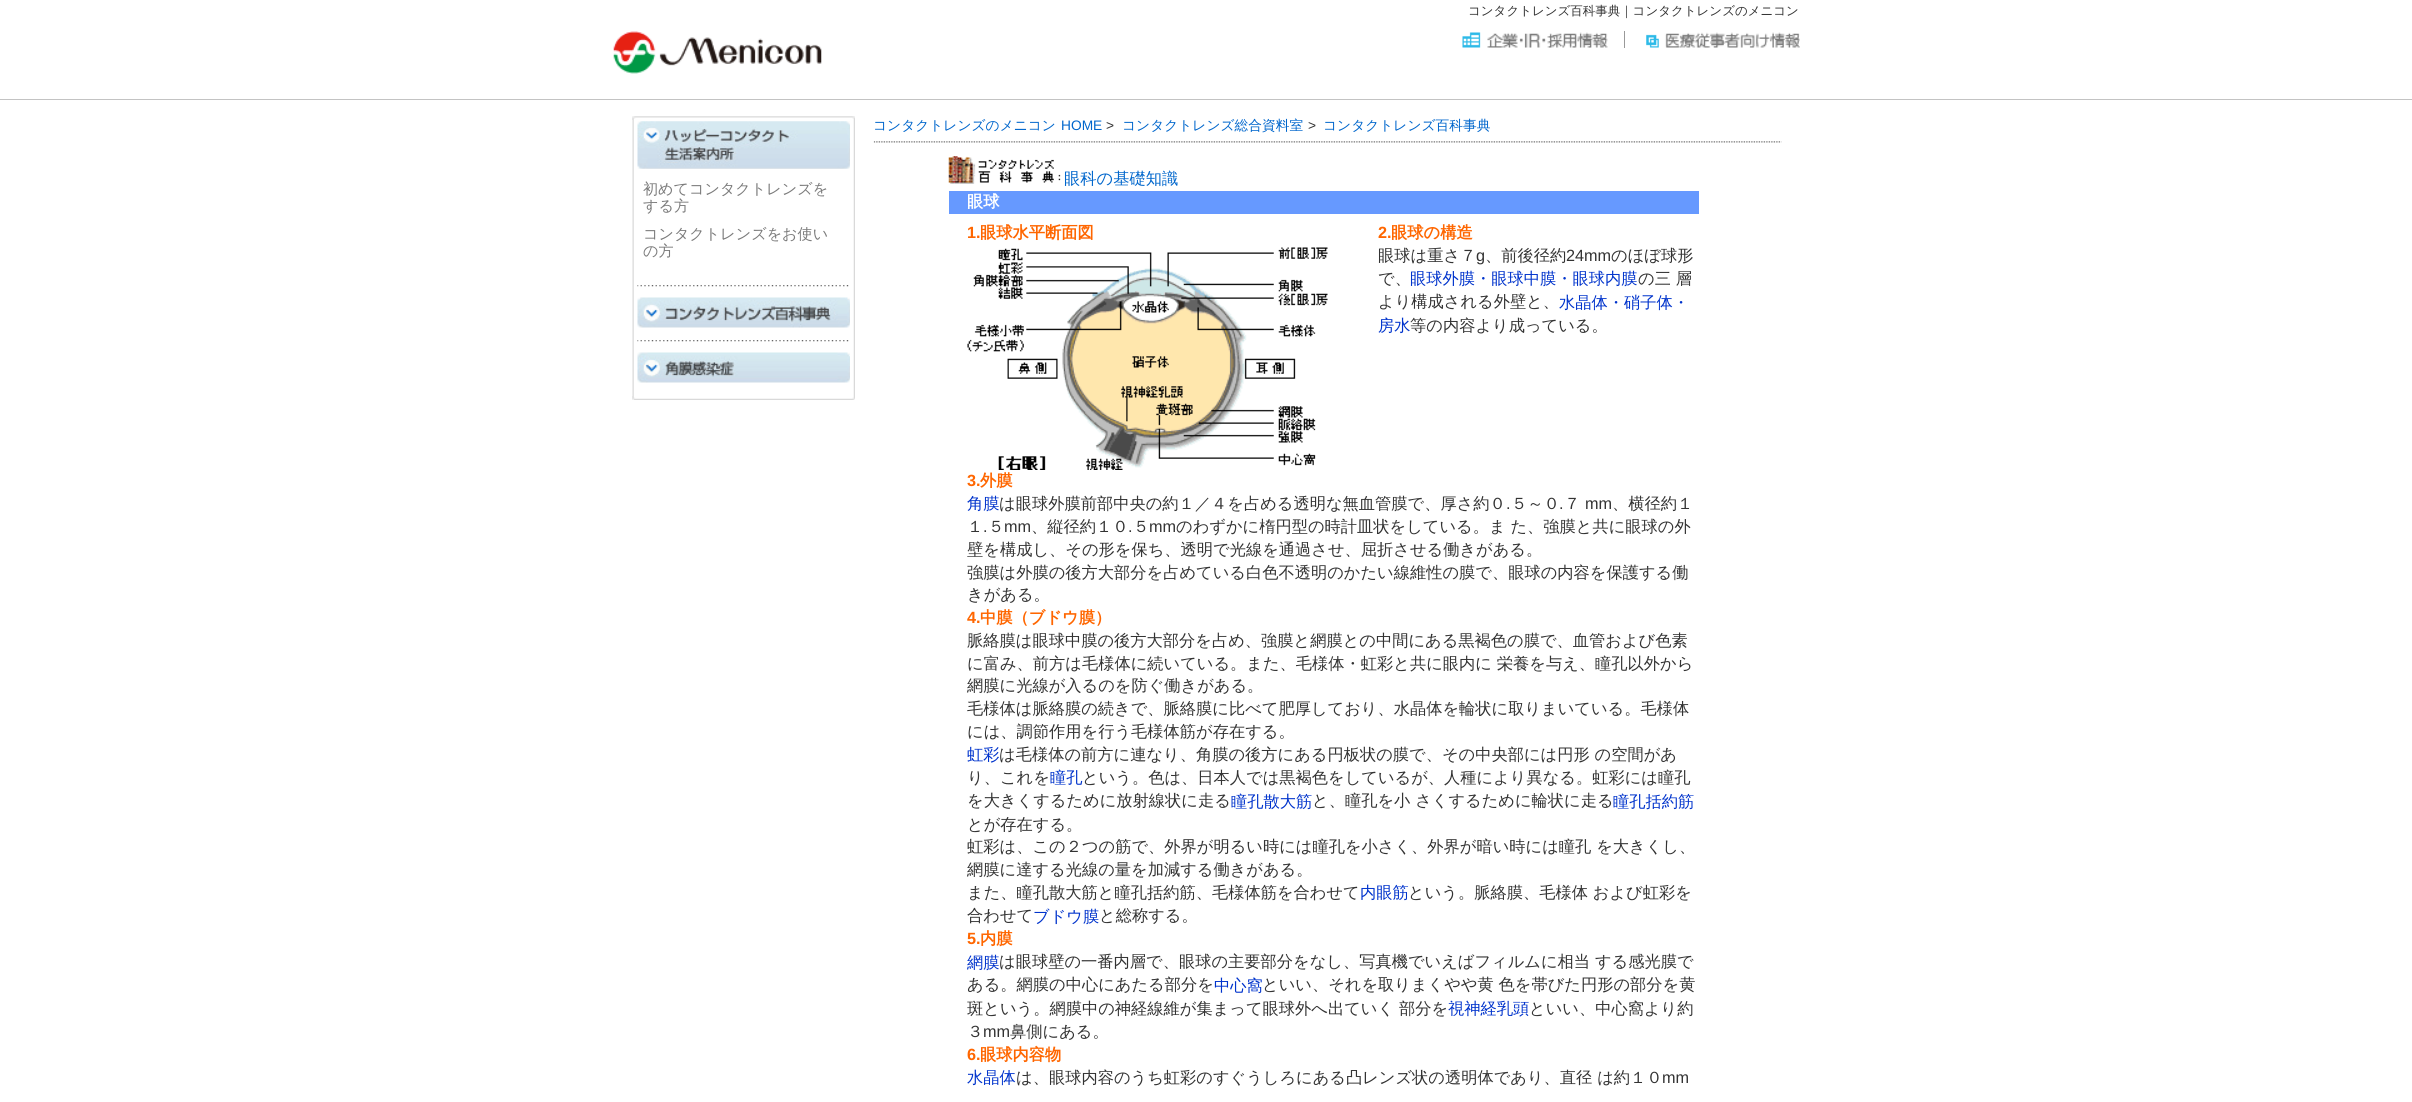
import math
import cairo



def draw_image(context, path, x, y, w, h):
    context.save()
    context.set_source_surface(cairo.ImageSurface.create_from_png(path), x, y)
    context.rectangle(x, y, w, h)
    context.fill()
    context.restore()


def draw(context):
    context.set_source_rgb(1, 1, 1)
    context.paint()
    context.set_source_rgb(195 / 255, 195 / 255, 195 / 255)
    context.rectangle(0, 99, 2412, 1)
    context.fill()
    draw_image(context, "images/1.png", 613, 31, 209, 43)
    context.set_source_rgb(153 / 255, 153 / 255, 153 / 255)
    context.rectangle(1624, 31, 1, 17)
    context.fill()
    draw_image(context, "images/2.png", 1462, 32, 146, 16)
    draw_image(context, "images/3.png", 1646, 32, 154, 16)
    draw_image(context, "images/4.png", 632, 116, 223, 284)
    draw_image(context, "images/5.png", 632, 116, 223, 4)
    draw_image(context, "images/6.png", 632, 396, 223, 4)
    draw_image(context, "images/7.png", 637, 121, 213, 48)
    draw_image(context, "images/8.png", 637, 285, 212, 2)
    draw_image(context, "images/9.png", 637, 340, 212, 2)
    draw_image(context, "images/10.png", 637, 297, 213, 31)
    draw_image(context, "images/11.png", 637, 352, 213, 31)
    draw_image(context, "images/12.png", 873, 141, 909, 2)
    draw_image(context, "images/13.png", 948, 156, 113, 28)
    context.set_source_rgb(102 / 255, 153 / 255, 1)
    context.rectangle(949, 191, 750, 23)
    context.fill()
    draw_image(context, "images/14.png", 967, 247, 361, 223)
    context.select_font_face("WenQuanYi Zen Hei Medium")
    context.set_font_size(12.5)
    context.set_source_rgb(51 / 255, 51 / 255, 51 / 255)
    context.move_to(1468, 15)
    context.show_text("コンタクトレンズ百科事典｜コンタクトレンズのメニコン")
    context.set_font_size(15.1)
    context.set_source_rgb(123 / 255, 123 / 255, 123 / 255)
    context.move_to(643, 194)
    context.show_text("初めてコンタクトレンズを")
    context.move_to(643, 211)
    context.show_text("する方")
    context.move_to(643, 239)
    context.show_text("コンタクトレンズをお使い")
    context.move_to(643, 256)
    context.show_text("の方")
    context.set_font_size(13.75)
    context.set_source_rgb(0, 102 / 255, 204 / 255)
    context.move_to(873, 130)
    context.show_text("コンタクトレンズのメニコン")
    context.select_font_face("Liberation Sans")
    context.move_to(1061, 130)
    context.show_text("HOME")
    context.set_source_rgb(51 / 255, 51 / 255, 51 / 255)
    context.move_to(1106, 130)
    context.show_text(">")
    context.select_font_face("WenQuanYi Zen Hei Medium")
    context.set_source_rgb(0, 102 / 255, 204 / 255)
    context.move_to(1122, 130)
    context.show_text("コンタクトレンズ総合資料室")
    context.select_font_face("Liberation Sans")
    context.set_source_rgb(51 / 255, 51 / 255, 51 / 255)
    context.move_to(1308, 130)
    context.show_text(">")
    context.select_font_face("WenQuanYi Zen Hei Medium")
    context.set_source_rgb(0, 102 / 255, 204 / 255)
    context.move_to(1323, 130)
    context.show_text("コンタクトレンズ百科事典")
    context.set_font_size(16.25)
    context.move_to(1064, 184)
    context.show_text("眼科の基礎知識")
    context.select_font_face("WenQuanYi Zen Hei", cairo.FontSlant.NORMAL, cairo.FontWeight.BOLD)
    context.set_source_rgb(1, 1, 1)
    context.move_to(967, 207)
    context.show_text("眼球")
    context.select_font_face("Liberation Sans", cairo.FontSlant.NORMAL, cairo.FontWeight.BOLD)
    context.set_source_rgb(1, 102 / 255, 0)
    context.move_to(967, 238)
    context.show_text("1.")
    context.select_font_face("WenQuanYi Zen Hei", cairo.FontSlant.NORMAL, cairo.FontWeight.BOLD)
    context.move_to(980, 238)
    context.show_text("眼球水平断面図")
    context.select_font_face("Liberation Sans", cairo.FontSlant.NORMAL, cairo.FontWeight.BOLD)
    context.move_to(1378, 238)
    context.show_text("2.")
    context.select_font_face("WenQuanYi Zen Hei", cairo.FontSlant.NORMAL, cairo.FontWeight.BOLD)
    context.move_to(1391, 238)
    context.show_text("眼球の構造")
    context.select_font_face("WenQuanYi Zen Hei Medium")
    context.set_source_rgb(51 / 255, 51 / 255, 51 / 255)
    context.move_to(1378, 261)
    context.show_text("眼球は重さ７")
    context.select_font_face("Liberation Sans")
    context.move_to(1476, 261)
    context.show_text("g")
    context.select_font_face("WenQuanYi Zen Hei Medium")
    context.move_to(1485, 261)
    context.show_text("、前後径約")
    context.select_font_face("Liberation Sans")
    context.move_to(1566, 261)
    context.show_text("24mm")
    context.select_font_face("WenQuanYi Zen Hei Medium")
    context.move_to(1611, 261)
    context.show_text("のほぼ球形")
    context.move_to(1378, 284)
    context.show_text("で、")
    context.set_source_rgb(0, 51 / 255, 204 / 255)
    context.move_to(1410, 284)
    context.show_text("眼球外膜・眼球中膜・眼球内膜")
    context.set_source_rgb(51 / 255, 51 / 255, 51 / 255)
    context.move_to(1638, 284)
    context.show_text("の三 層")
    context.move_to(1378, 307)
    context.show_text("より構成される外壁と、")
    context.set_source_rgb(0, 51 / 255, 204 / 255)
    context.move_to(1559, 308)
    context.show_text("水晶体・硝子体・")
    context.move_to(1378, 331)
    context.show_text("房水")
    context.set_source_rgb(51 / 255, 51 / 255, 51 / 255)
    context.move_to(1410, 331)
    context.show_text("等の内容より成っている。")
    context.select_font_face("Liberation Sans", cairo.FontSlant.NORMAL, cairo.FontWeight.BOLD)
    context.set_source_rgb(1, 102 / 255, 0)
    context.move_to(967, 486)
    context.show_text("3.")
    context.select_font_face("WenQuanYi Zen Hei", cairo.FontSlant.NORMAL, cairo.FontWeight.BOLD)
    context.move_to(980, 486)
    context.show_text("外膜")
    context.select_font_face("WenQuanYi Zen Hei Medium")
    context.set_source_rgb(0, 51 / 255, 204 / 255)
    context.move_to(967, 509)
    context.show_text("角膜")
    context.set_source_rgb(51 / 255, 51 / 255, 51 / 255)
    context.move_to(999, 509)
    context.show_text("は眼球外膜前部中央の約１／４を占める透明な無血管膜で、厚さ約０")
    context.select_font_face("Liberation Sans")
    context.move_to(1506, 509)
    context.show_text(".")
    context.select_font_face("WenQuanYi Zen Hei Medium")
    context.move_to(1511, 509)
    context.show_text("５～０")
    context.select_font_face("Liberation Sans")
    context.move_to(1559, 509)
    context.show_text(".")
    context.select_font_face("WenQuanYi Zen Hei Medium")
    context.move_to(1564, 509)
    context.show_text("７")
    context.select_font_face("Liberation Sans")
    context.move_to(1585, 509)
    context.show_text("mm")
    context.select_font_face("WenQuanYi Zen Hei Medium")
    context.move_to(1612, 509)
    context.show_text("、横径約１")
    context.move_to(967, 532)
    context.show_text("１")
    context.select_font_face("Liberation Sans")
    context.move_to(983, 532)
    context.show_text(".")
    context.select_font_face("WenQuanYi Zen Hei Medium")
    context.move_to(988, 532)
    context.show_text("５")
    context.select_font_face("Liberation Sans")
    context.move_to(1004, 532)
    context.show_text("mm")
    context.select_font_face("WenQuanYi Zen Hei Medium")
    context.move_to(1031, 532)
    context.show_text("、縦径約１０")
    context.select_font_face("Liberation Sans")
    context.move_to(1128, 532)
    context.show_text(".")
    context.select_font_face("WenQuanYi Zen Hei Medium")
    context.move_to(1133, 532)
    context.show_text("５")
    context.select_font_face("Liberation Sans")
    context.move_to(1149, 532)
    context.show_text("mm")
    context.select_font_face("WenQuanYi Zen Hei Medium")
    context.move_to(1176, 532)
    context.show_text("のわずかに楕円型の時計皿状をしている。ま た、強膜と共に眼球の外")
    context.move_to(967, 555)
    context.show_text("壁を構成し、その形を保ち、透明で光線を通過させ、屈折させる働きがある。")
    context.move_to(967, 578)
    context.show_text("強膜は外膜の後方大部分を占めている白色不透明のかたい線維性の膜で、眼球の内容を保護する働")
    context.move_to(967, 600)
    context.show_text("きがある。")
    context.select_font_face("Liberation Sans", cairo.FontSlant.NORMAL, cairo.FontWeight.BOLD)
    context.set_source_rgb(1, 102 / 255, 0)
    context.move_to(967, 623)
    context.show_text("4.")
    context.select_font_face("WenQuanYi Zen Hei", cairo.FontSlant.NORMAL, cairo.FontWeight.BOLD)
    context.move_to(980, 623)
    context.show_text("中膜（ブドウ膜）")
    context.select_font_face("WenQuanYi Zen Hei Medium")
    context.set_source_rgb(51 / 255, 51 / 255, 51 / 255)
    context.move_to(967, 646)
    context.show_text("脈絡膜は眼球中膜の後方大部分を占め、強膜と網膜との中間にある黒褐色の膜で、血管および色素")
    context.move_to(967, 669)
    context.show_text("に富み、前方は毛様体に続いている。また、毛様体・虹彩と共に眼内に 栄養を与え、瞳孔以外から")
    context.move_to(967, 691)
    context.show_text("網膜に光線が入るのを防ぐ働きがある。")
    context.move_to(967, 714)
    context.show_text("毛様体は脈絡膜の続きで、脈絡膜に比べて肥厚しており、水晶体を輪状に取りまいている。毛様体")
    context.move_to(967, 737)
    context.show_text("には、調節作用を行う毛様体筋が存在する。")
    context.set_source_rgb(0, 51 / 255, 204 / 255)
    context.move_to(967, 760)
    context.show_text("虹彩")
    context.set_source_rgb(51 / 255, 51 / 255, 51 / 255)
    context.move_to(999, 760)
    context.show_text("は毛様体の前方に連なり、角膜の後方にある円板状の膜で、その中央部には円形 の空間があ")
    context.move_to(967, 783)
    context.show_text("り、これを")
    context.set_source_rgb(0, 51 / 255, 204 / 255)
    context.move_to(1050, 783)
    context.show_text("瞳孔")
    context.set_source_rgb(51 / 255, 51 / 255, 51 / 255)
    context.move_to(1082, 783)
    context.show_text("という。色は、日本人では黒褐色をしているが、人種により異なる。虹彩には瞳孔")
    context.move_to(967, 806)
    context.show_text("を大きくするために放射線状に走る")
    context.set_source_rgb(0, 51 / 255, 204 / 255)
    context.move_to(1231, 807)
    context.show_text("瞳孔散大筋")
    context.set_source_rgb(51 / 255, 51 / 255, 51 / 255)
    context.move_to(1312, 806)
    context.show_text("と、瞳孔を小 さくするために輪状に走る")
    context.set_source_rgb(0, 51 / 255, 204 / 255)
    context.move_to(1613, 807)
    context.show_text("瞳孔括約筋")
    context.set_source_rgb(51 / 255, 51 / 255, 51 / 255)
    context.move_to(967, 830)
    context.show_text("とが存在する。")
    context.move_to(967, 852)
    context.show_text("虹彩は、この２つの筋で、外界が明るい時には瞳孔を小さく、外界が暗い時には瞳孔 を大きくし、")
    context.move_to(967, 875)
    context.show_text("網膜に達する光線の量を加減する働きがある。")
    context.move_to(967, 898)
    context.show_text("また、瞳孔散大筋と瞳孔括約筋、毛様体筋を合わせて")
    context.set_source_rgb(0, 51 / 255, 204 / 255)
    context.move_to(1360, 898)
    context.show_text("内眼筋")
    context.set_source_rgb(51 / 255, 51 / 255, 51 / 255)
    context.move_to(1408, 898)
    context.show_text("という。脈絡膜、毛様体 および虹彩を")
    context.move_to(967, 921)
    context.show_text("合わせて")
    context.set_source_rgb(0, 51 / 255, 204 / 255)
    context.move_to(1033, 922)
    context.show_text("ブドウ膜")
    context.set_source_rgb(51 / 255, 51 / 255, 51 / 255)
    context.move_to(1099, 921)
    context.show_text("と総称する。")
    context.select_font_face("Liberation Sans", cairo.FontSlant.NORMAL, cairo.FontWeight.BOLD)
    context.set_source_rgb(1, 102 / 255, 0)
    context.move_to(967, 944)
    context.show_text("5.")
    context.select_font_face("WenQuanYi Zen Hei", cairo.FontSlant.NORMAL, cairo.FontWeight.BOLD)
    context.move_to(980, 944)
    context.show_text("内膜")
    context.select_font_face("WenQuanYi Zen Hei Medium")
    context.set_source_rgb(0, 51 / 255, 204 / 255)
    context.move_to(967, 968)
    context.show_text("網膜")
    context.set_source_rgb(51 / 255, 51 / 255, 51 / 255)
    context.move_to(999, 967)
    context.show_text("は眼球壁の一番内層で、眼球の主要部分をなし、写真機でいえばフィルムに相当 する感光膜で")
    context.move_to(967, 990)
    context.show_text("ある。網膜の中心にあたる部分を")
    context.set_source_rgb(0, 51 / 255, 204 / 255)
    context.move_to(1214, 991)
    context.show_text("中心窩")
    context.set_source_rgb(51 / 255, 51 / 255, 51 / 255)
    context.move_to(1262, 990)
    context.show_text("といい、それを取りまくやや黄 色を帯びた円形の部分を黄")
    context.move_to(967, 1014)
    context.show_text("斑という。網膜中の神経線維が集まって眼球外へ出ていく 部分を")
    context.set_source_rgb(0, 51 / 255, 204 / 255)
    context.move_to(1448, 1014)
    context.show_text("視神経乳頭")
    context.set_source_rgb(51 / 255, 51 / 255, 51 / 255)
    context.move_to(1529, 1014)
    context.show_text("といい、中心窩より約")
    context.move_to(967, 1037)
    context.show_text("３")
    context.select_font_face("Liberation Sans")
    context.move_to(983, 1037)
    context.show_text("mm")
    context.select_font_face("WenQuanYi Zen Hei Medium")
    context.move_to(1010, 1037)
    context.show_text("鼻側にある。")
    context.select_font_face("Liberation Sans", cairo.FontSlant.NORMAL, cairo.FontWeight.BOLD)
    context.set_source_rgb(1, 102 / 255, 0)
    context.move_to(967, 1060)
    context.show_text("6.")
    context.select_font_face("WenQuanYi Zen Hei", cairo.FontSlant.NORMAL, cairo.FontWeight.BOLD)
    context.move_to(980, 1060)
    context.show_text("眼球内容物")
    context.select_font_face("WenQuanYi Zen Hei Medium")
    context.set_source_rgb(0, 51 / 255, 204 / 255)
    context.move_to(967, 1083)
    context.show_text("水晶体")
    context.set_source_rgb(51 / 255, 51 / 255, 51 / 255)
    context.move_to(1016, 1083)
    context.show_text("は、眼球内容のうち虹彩のすぐうしろにある凸レンズ状の透明体であり、直径 は約１０")
    context.select_font_face("Liberation Sans")
    context.move_to(1662, 1083)
    context.show_text("mm")


surface = cairo.ImageSurface(cairo.Format.RGB24, 2412, 1102)
context = cairo.Context(surface)
options = cairo.FontOptions()
options.set_hint_metrics(cairo.HintMetrics.OFF)
options.set_hint_style(cairo.HintStyle.NONE)
context.set_font_options(options)
context.set_miter_limit(4)
draw(context)
surface.write_to_png("out.png")
